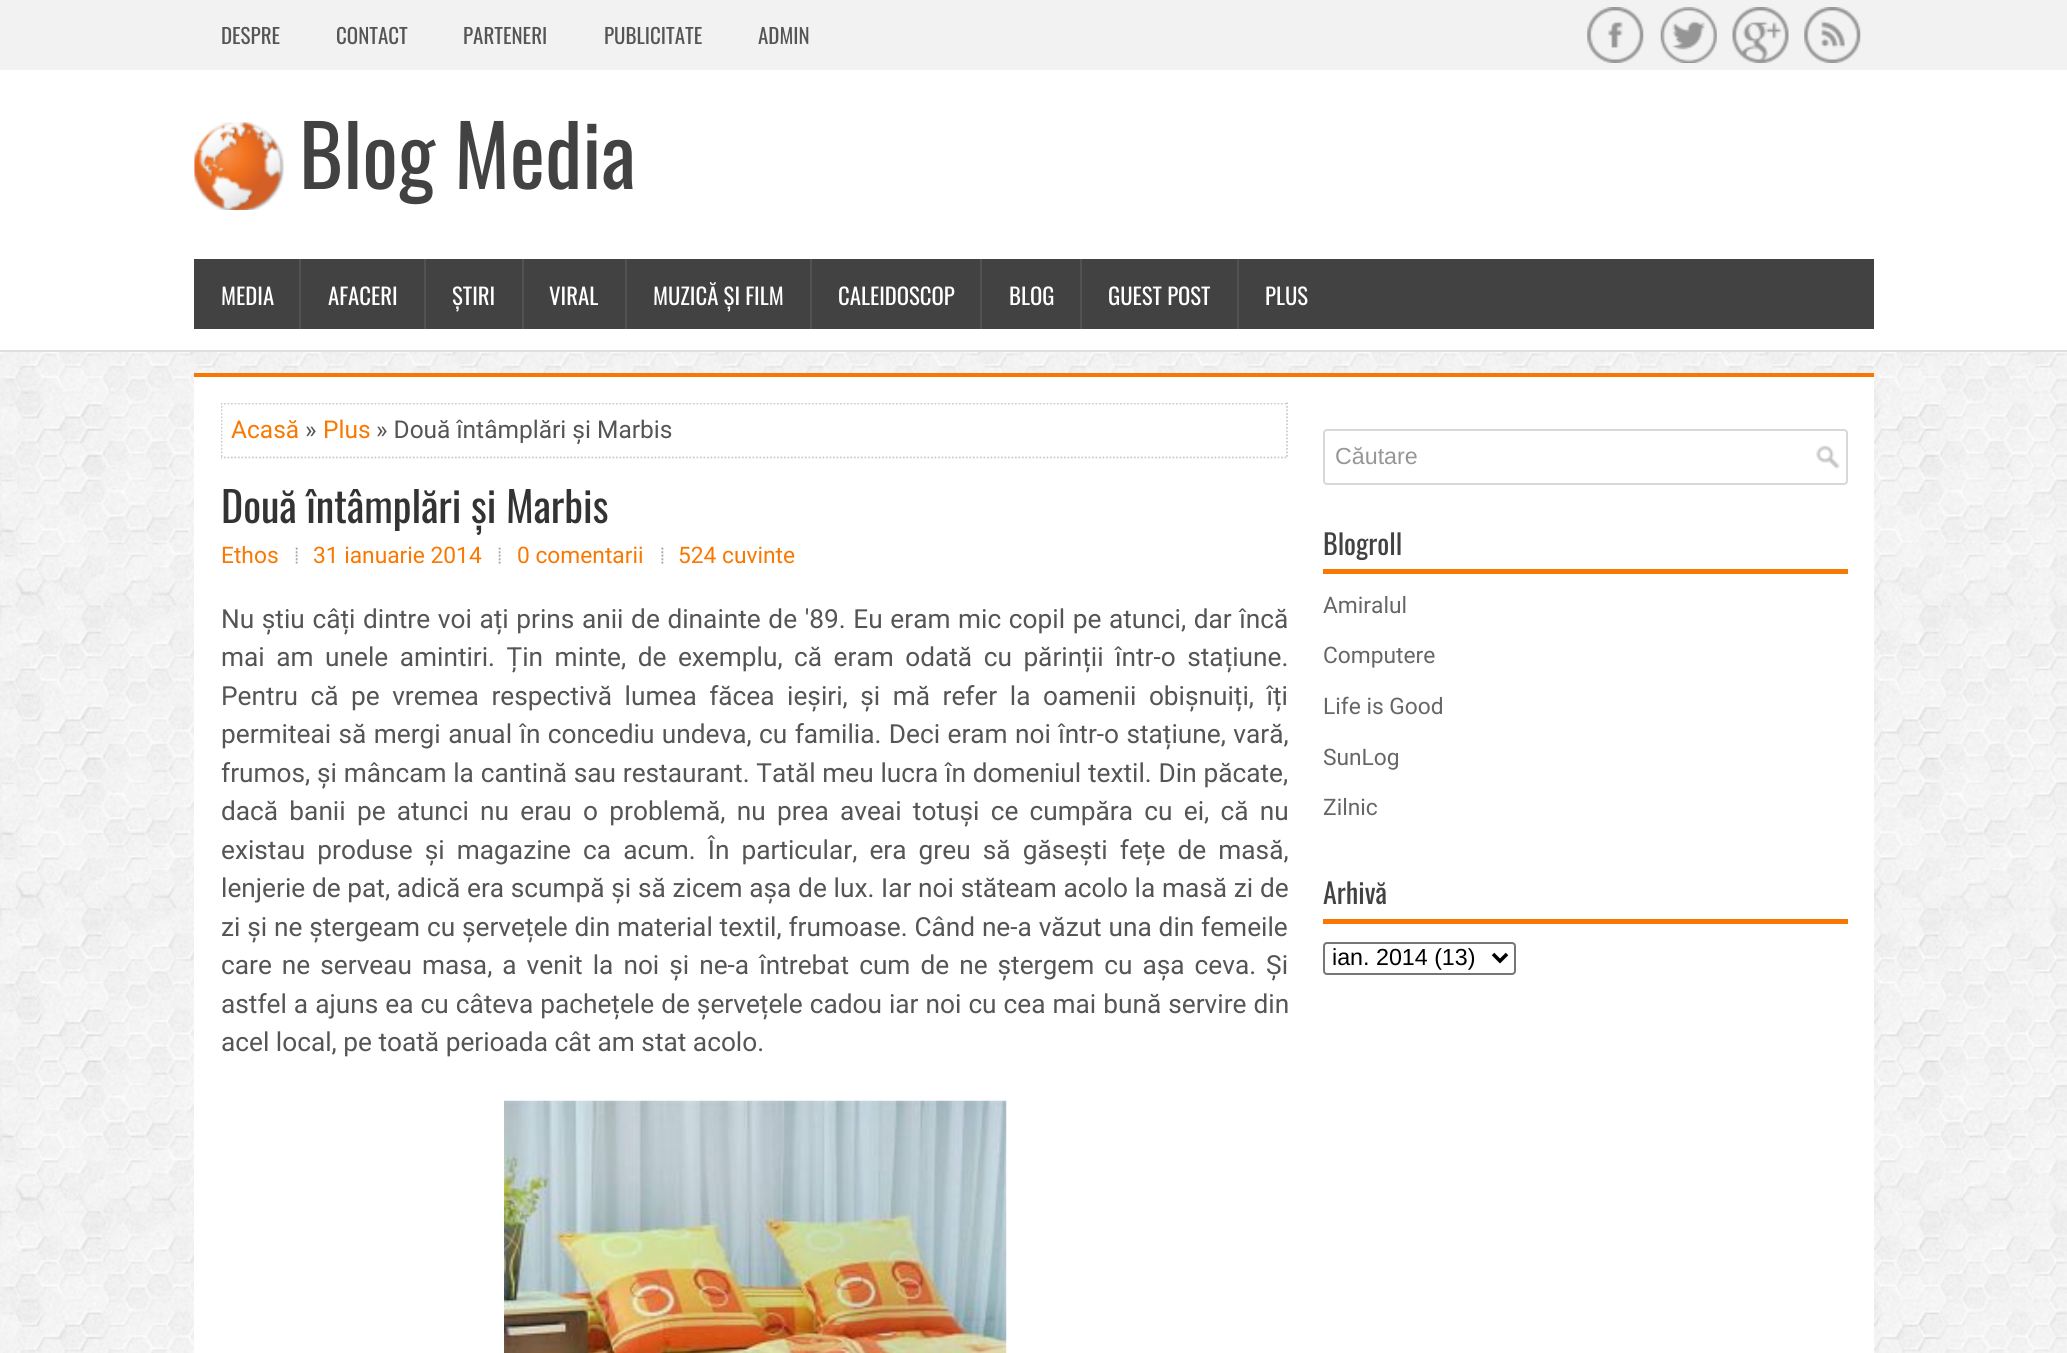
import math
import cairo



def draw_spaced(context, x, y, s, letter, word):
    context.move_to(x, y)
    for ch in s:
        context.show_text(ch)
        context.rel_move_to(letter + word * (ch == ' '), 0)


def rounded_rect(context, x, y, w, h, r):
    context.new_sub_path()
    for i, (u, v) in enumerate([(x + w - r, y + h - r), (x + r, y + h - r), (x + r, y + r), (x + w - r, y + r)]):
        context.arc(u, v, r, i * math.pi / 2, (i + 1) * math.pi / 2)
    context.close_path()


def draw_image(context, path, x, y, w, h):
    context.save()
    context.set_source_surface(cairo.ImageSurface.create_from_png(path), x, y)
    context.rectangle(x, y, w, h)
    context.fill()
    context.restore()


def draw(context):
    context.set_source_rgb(1, 1, 1)
    context.paint()
    draw_image(context, "images/1.png", 0, 352, 2067, 1001)
    context.set_source_rgb(224 / 255, 224 / 255, 224 / 255)
    context.rectangle(0, 350, 2067, 2)
    context.fill()
    context.set_source_rgb(242 / 255, 242 / 255, 242 / 255)
    context.rectangle(0, 0, 2067, 70)
    context.fill()
    draw_image(context, "images/2.png", 1587, 7, 57, 56)
    draw_image(context, "images/3.png", 1660, 7, 57, 56)
    draw_image(context, "images/4.png", 1732, 7, 57, 56)
    draw_image(context, "images/5.png", 1804, 7, 57, 56)
    draw_image(context, "images/6.png", 194, 122, 90, 88)
    context.set_source_rgb(66 / 255, 66 / 255, 66 / 255)
    context.rectangle(194, 259, 1680, 70)
    context.fill()
    context.set_source_rgb(82 / 255, 82 / 255, 82 / 255)
    context.rectangle(299, 259, 2, 70)
    context.fill()
    context.rectangle(424, 259, 2, 70)
    context.fill()
    context.rectangle(522, 259, 2, 70)
    context.fill()
    context.rectangle(625, 259, 2, 70)
    context.fill()
    context.rectangle(810, 259, 2, 70)
    context.fill()
    context.rectangle(980, 259, 2, 70)
    context.fill()
    context.rectangle(1080, 259, 2, 70)
    context.fill()
    context.rectangle(1237, 259, 2, 70)
    context.fill()
    context.set_source_rgb(1, 1, 1)
    context.rectangle(194, 377, 1680, 976)
    context.fill()
    context.set_source_rgb(247 / 255, 119 / 255, 1 / 255)
    context.rectangle(194, 373, 1680, 4)
    context.fill()
    context.save()
    context.rectangle(221, 403, 1067, 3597)
    context.clip()
    context.new_path()
    context.move_to(220.5, 403.5)
    context.line_to(1288, 403.5)
    context.set_source_rgb(204 / 255, 204 / 255, 204 / 255)
    context.set_line_width(1.8)
    context.set_dash([1.75, 1.75])
    context.stroke()
    context.restore()
    context.new_path()
    context.move_to(1287, 402.5)
    context.line_to(1287, 458.5)
    context.set_source_rgb(204 / 255, 204 / 255, 204 / 255)
    context.set_line_width(1.8)
    context.set_dash([1.75, 1.75])
    context.stroke()
    context.save()
    context.rectangle(221, 403, 1067, 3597)
    context.clip()
    context.new_path()
    context.move_to(220.5, 457.5)
    context.line_to(1288, 457.5)
    context.stroke()
    context.new_path()
    context.move_to(221.5, 402.5)
    context.line_to(221.5, 458.5)
    context.stroke()
    context.restore()
    draw_image(context, "images/7.png", 295, 547, 3, 17)
    draw_image(context, "images/7.png", 498, 547, 3, 17)
    draw_image(context, "images/8.png", 661, 547, 3, 17)
    draw_image(context, "images/9.png", 504, 1100, 503, 253)
    draw_image(context, "images/10.png", 1816, 445, 24, 25)
    rounded_rect(context, 1324, 430, 523, 54, 3)
    context.set_source_rgb(216 / 255, 216 / 255, 216 / 255)
    context.set_line_width(2)
    context.set_dash([])
    context.stroke()
    context.set_source_rgb(248 / 255, 120 / 255, 1 / 255)
    context.rectangle(1323, 569, 525, 5)
    context.fill()
    context.rectangle(1323, 919, 525, 5)
    context.fill()
    rounded_rect(context, 1324, 943, 191, 31, 3)
    context.set_source_rgb(118 / 255, 118 / 255, 118 / 255)
    context.stroke()
    context.new_path()
    context.move_to(1493, 954)
    context.line_to(1500, 961)
    context.line_to(1507, 954)
    context.set_source_rgb(0, 0, 0)
    context.set_line_width(3.5)
    context.stroke()
    context.select_font_face("Oswald")
    context.set_font_size(21)
    context.set_source_rgb(85 / 255, 85 / 255, 85 / 255)
    context.move_to(221, 44)
    context.show_text("DESPRE")
    context.move_to(336, 44)
    context.show_text("CONTACT")
    context.move_to(463, 44)
    context.show_text("PARTENERI")
    context.move_to(604, 44)
    context.show_text("PUBLICITATE")
    context.move_to(758, 44)
    context.show_text("ADMIN")
    context.set_font_size(84)
    context.set_source_rgb(66 / 255, 66 / 255, 66 / 255)
    context.move_to(299, 189)
    context.show_text("Blog Media")
    context.set_font_size(22.75)
    context.set_source_rgb(1, 1, 1)
    context.move_to(221, 305)
    context.show_text("MEDIA")
    context.move_to(328, 305)
    context.show_text("AFACERI")
    context.move_to(452, 305)
    context.show_text("ȘTIRI")
    context.move_to(549, 305)
    context.show_text("VIRAL")
    context.move_to(653, 305)
    context.show_text("MUZICĂ ȘI FILM")
    context.move_to(838, 305)
    context.show_text("CALEIDOSCOP")
    context.move_to(1009, 305)
    context.show_text("BLOG")
    context.move_to(1108, 305)
    context.show_text("GUEST POST")
    context.move_to(1265, 305)
    context.show_text("PLUS")
    context.select_font_face("Roboto")
    context.set_font_size(24.5)
    context.set_source_rgb(248 / 255, 120 / 255, 1 / 255)
    context.move_to(231, 438)
    context.show_text("Acasă")
    context.set_source_rgb(85 / 255, 85 / 255, 85 / 255)
    context.move_to(305, 438)
    context.show_text("»")
    context.set_source_rgb(248 / 255, 120 / 255, 1 / 255)
    context.move_to(323, 438)
    context.show_text("Plus")
    context.set_source_rgb(85 / 255, 85 / 255, 85 / 255)
    context.move_to(376, 438)
    context.show_text("» Două întâmplări și Marbis")
    context.select_font_face("Oswald")
    context.set_font_size(42)
    context.set_source_rgb(51 / 255, 51 / 255, 51 / 255)
    context.move_to(221, 523)
    context.show_text("Două întâmplări și Marbis")
    context.select_font_face("Roboto")
    context.set_font_size(22.75)
    context.set_source_rgb(248 / 255, 120 / 255, 1 / 255)
    context.move_to(221, 563)
    context.show_text("Ethos")
    context.move_to(313, 563)
    context.show_text("31 ianuarie 2014")
    context.move_to(517, 563)
    context.show_text("0 comentarii")
    context.move_to(678, 563)
    context.show_text("524 cuvinte")
    context.set_font_size(26.25)
    context.set_source_rgb(85 / 255, 85 / 255, 85 / 255)
    draw_spaced(context, 221, 628, "Nu știu câți dintre voi ați prins anii de dinainte de '89. Eu eram mic copil pe atunci, dar încă", 0, 1.1)
    draw_spaced(context, 221, 666, "mai am unele amintiri. Țin minte, de exemplu, că eram odată cu părinții într-o stațiune.", 0, 5)
    draw_spaced(context, 221, 705, "Pentru că pe vremea respectivă lumea făcea ieșiri, și mă refer la oamenii obișnuiți, îți", 0, 6)
    draw_spaced(context, 221, 743, "permiteai să mergi anual în concediu undeva, cu familia. Deci eram noi într-o stațiune, vară,", 0, 0.9)
    draw_spaced(context, 221, 782, "frumos, și mâncam la cantină sau restaurant. Tatăl meu lucra în domeniul textil. Din păcate,", 0, 0.25)
    draw_spaced(context, 221, 820, "dacă banii pe atunci nu erau o problemă, nu prea aveai totuși ce cumpăra cu ei, că nu", 0, 4.75)
    draw_spaced(context, 221, 859, "existau produse și magazine ca acum. În particular, era greu să găsești fețe de masă,", 0, 5.6)
    draw_spaced(context, 221, 897, "lenjerie de pat, adică era scumpă și să zicem așa de lux. Iar noi stăteam acolo la masă zi de", 0, 0.2)
    draw_spaced(context, 221, 936, "zi și ne ștergeam cu șervețele din material textil, frumoase. Când ne-a văzut una din femeile", 0, 0.3)
    draw_spaced(context, 221, 974, "care ne serveau masa, a venit la noi și ne-a întrebat cum de ne ștergem cu așa ceva. Și", 0, 3.5)
    draw_spaced(context, 221, 1013, "astfel a ajuns ea cu câteva pachețele de șervețele cadou iar noi cu cea mai bună servire din", 0, 0.5)
    context.move_to(221, 1051)
    context.show_text("acel local, pe toată perioada cât am stat acolo.")
    context.select_font_face("Liberation Sans")
    context.set_font_size(23.25)
    context.set_source_rgb(151 / 255, 151 / 255, 151 / 255)
    context.move_to(1335, 464)
    context.show_text("Căutare")
    context.select_font_face("Oswald")
    context.set_font_size(28)
    context.set_source_rgb(66 / 255, 66 / 255, 66 / 255)
    context.move_to(1323, 555)
    context.show_text("Blogroll")
    context.select_font_face("Roboto")
    context.set_font_size(22.75)
    context.set_source_rgb(102 / 255, 102 / 255, 102 / 255)
    context.move_to(1323, 613)
    context.show_text("Amiralul")
    context.move_to(1323, 663)
    context.show_text("Computere")
    context.move_to(1323, 714)
    context.show_text("Life is Good")
    context.move_to(1323, 765)
    context.show_text("SunLog")
    context.move_to(1323, 815)
    context.show_text("Zilnic")
    context.select_font_face("Oswald")
    context.set_font_size(28)
    context.set_source_rgb(66 / 255, 66 / 255, 66 / 255)
    context.move_to(1323, 904)
    context.show_text("Arhivă")
    context.select_font_face("Liberation Sans")
    context.set_font_size(23.25)
    context.set_source_rgb(0, 0, 0)
    context.move_to(1332, 965)
    context.show_text("ian. 2014 (13)")


surface = cairo.ImageSurface(cairo.Format.RGB24, 2067, 1353)
context = cairo.Context(surface)
options = cairo.FontOptions()
options.set_hint_metrics(cairo.HintMetrics.OFF)
options.set_hint_style(cairo.HintStyle.NONE)
context.set_font_options(options)
context.set_miter_limit(4)
draw(context)
surface.write_to_png("out.png")
